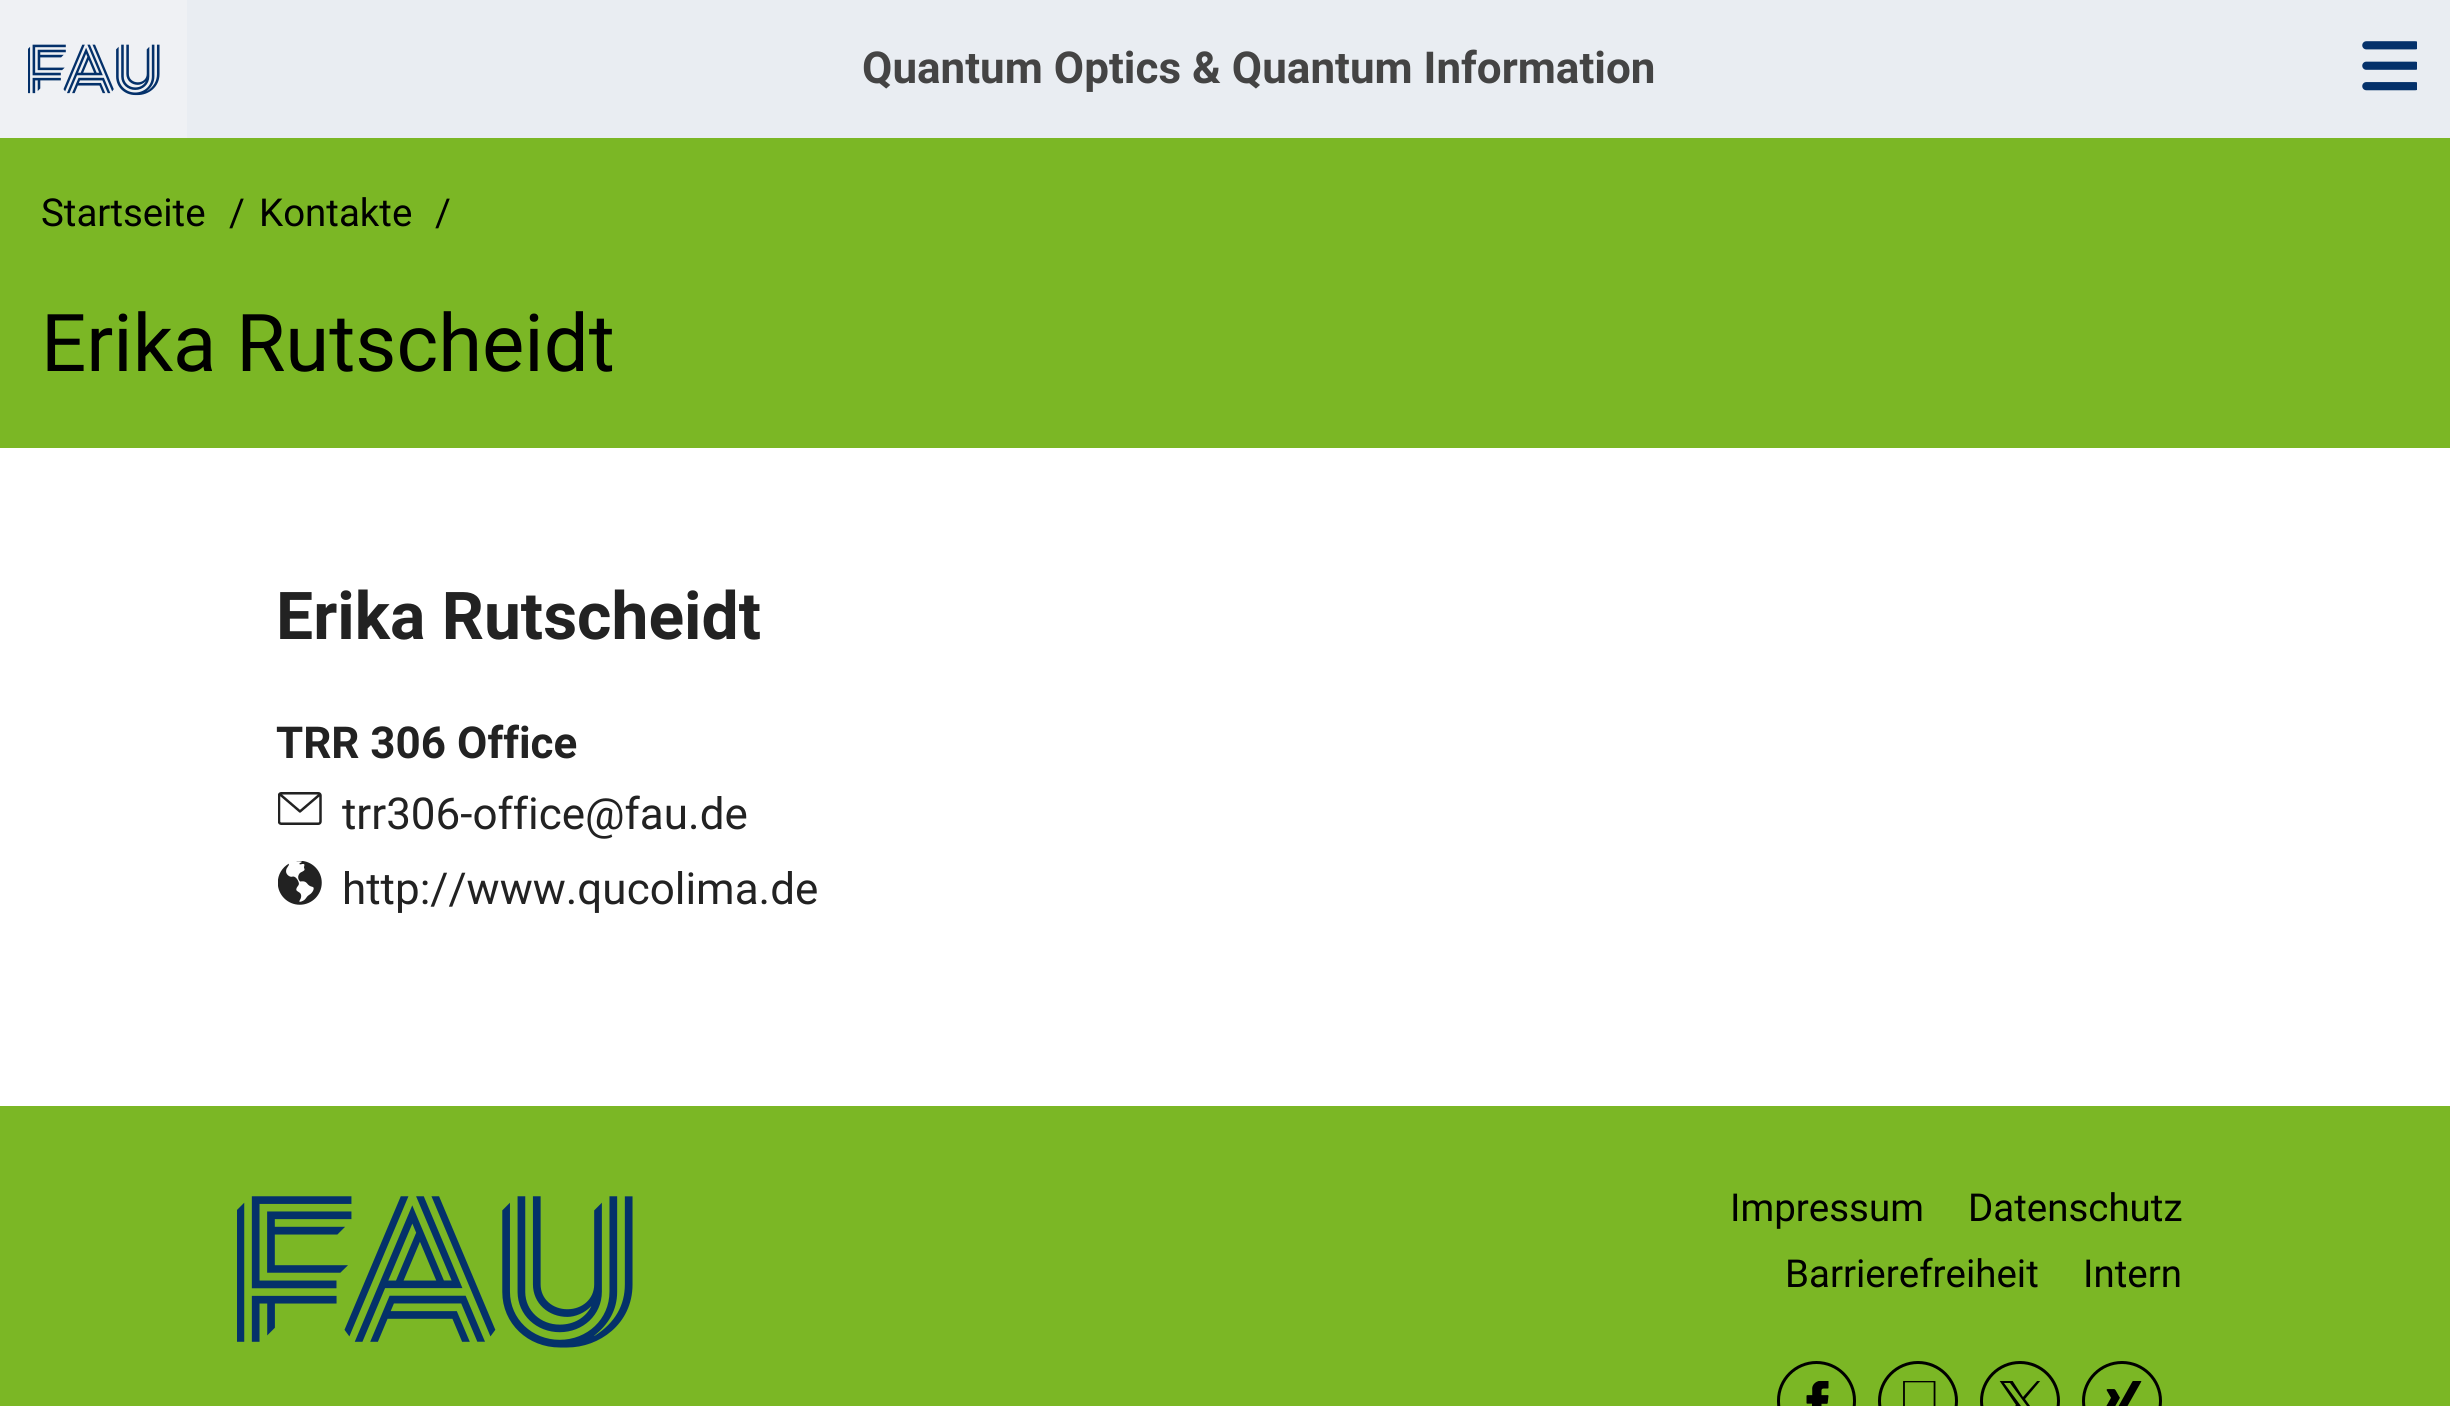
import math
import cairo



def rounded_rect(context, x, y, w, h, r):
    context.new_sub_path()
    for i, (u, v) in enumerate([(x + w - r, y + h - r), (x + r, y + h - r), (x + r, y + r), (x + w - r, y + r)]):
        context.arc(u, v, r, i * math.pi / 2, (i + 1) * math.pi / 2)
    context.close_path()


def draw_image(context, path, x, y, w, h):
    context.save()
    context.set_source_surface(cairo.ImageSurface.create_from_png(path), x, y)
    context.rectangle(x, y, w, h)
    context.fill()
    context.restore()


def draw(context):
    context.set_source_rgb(1, 1, 1)
    context.paint()
    context.set_source_rgb(233 / 255, 237 / 255, 242 / 255)
    context.rectangle(187, 0, 2263, 138)
    context.fill()
    context.set_source_rgb(239 / 255, 241 / 255, 244 / 255)
    context.rectangle(0, 0, 187, 138)
    context.fill()
    draw_image(context, "images/1.png", 28, 44, 132, 52)
    draw_image(context, "images/2.png", 2362, 41, 55, 50)
    context.set_source_rgb(123 / 255, 183 / 255, 37 / 255)
    context.rectangle(0, 138, 2450, 310)
    context.fill()
    draw_image(context, "images/3.png", 278, 792, 44, 33)
    draw_image(context, "images/4.png", 278, 861, 44, 44)
    context.rectangle(0, 1106, 2450, 300)
    context.fill()
    draw_image(context, "images/5.png", 237, 1196, 396, 152)
    rounded_rect(context, 1778.5, 1362.5, 76, 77, 38)
    context.set_source_rgb(0, 0, 0)
    context.set_line_width(3)
    context.stroke()
    draw_image(context, "images/6.png", 1806, 1381, 23, 25)
    context.arc(1918, 1401, 38.5, 0, 2 * math.pi)
    context.stroke()
    draw_image(context, "images/7.png", 1903, 1381, 33, 25)
    context.arc(2020, 1401, 38.5, 0, 2 * math.pi)
    context.stroke()
    context.save()
    context.rectangle(1999, 1381, 44, 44)
    context.clip()
    context.new_path()
    context.move_to(2025, 1399)
    context.line_to(2041, 1380)
    context.line_to(2038, 1380)
    context.line_to(2023, 1397)
    context.line_to(2012, 1380)
    context.line_to(1999, 1380)
    context.line_to(2016, 1405)
    context.line_to(1999, 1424)
    context.line_to(2003, 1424)
    context.line_to(2018, 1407)
    context.line_to(2030, 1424)
    context.line_to(2043, 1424)
    context.move_to(2004, 1383)
    context.line_to(2010, 1383)
    context.line_to(2038, 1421)
    context.line_to(2032, 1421)
    context.fill()
    context.restore()
    context.arc(2122, 1401, 38.5, 0, 2 * math.pi)
    context.stroke()
    draw_image(context, "images/8.png", 2106, 1381, 36, 25)
    context.select_font_face("Roboto", cairo.FontSlant.NORMAL, cairo.FontWeight.BOLD)
    context.set_font_size(44)
    context.set_source_rgb(68 / 255, 68 / 255, 68 / 255)
    context.move_to(862, 83)
    context.show_text("Quantum Optics & Quantum Information")
    context.select_font_face("Roboto")
    context.set_font_size(38.5)
    context.set_source_rgb(0, 0, 0)
    context.move_to(41, 226)
    context.show_text("Startseite")
    context.move_to(229, 226)
    context.show_text("/")
    context.move_to(259, 226)
    context.show_text("Kontakte")
    context.move_to(435, 226)
    context.show_text("/")
    context.set_font_size(79.75)
    context.move_to(41, 371)
    context.show_text("Erika Rutscheidt")
    context.select_font_face("Roboto", cairo.FontSlant.NORMAL, cairo.FontWeight.BOLD)
    context.set_font_size(66)
    context.set_source_rgb(34 / 255, 34 / 255, 34 / 255)
    context.move_to(276, 639)
    context.show_text("Erika Rutscheidt")
    context.set_font_size(44)
    context.move_to(276, 758)
    context.show_text("TRR 306 Office")
    context.select_font_face("Roboto")
    context.move_to(342, 829)
    context.show_text("trr306-office@fau.de")
    context.move_to(342, 904)
    context.show_text("http://www.qucolima.de")
    context.set_font_size(38.5)
    context.set_source_rgb(0, 0, 0)
    context.move_to(1730, 1221)
    context.show_text("Impressum")
    context.move_to(1968, 1221)
    context.show_text("Datenschutz")
    context.move_to(1785, 1287)
    context.show_text("Barrierefreiheit")
    context.move_to(2083, 1287)
    context.show_text("Intern")


surface = cairo.ImageSurface(cairo.Format.RGB24, 2450, 1406)
context = cairo.Context(surface)
options = cairo.FontOptions()
options.set_hint_metrics(cairo.HintMetrics.OFF)
options.set_hint_style(cairo.HintStyle.NONE)
context.set_font_options(options)
context.set_miter_limit(4)
draw(context)
surface.write_to_png("out.png")
